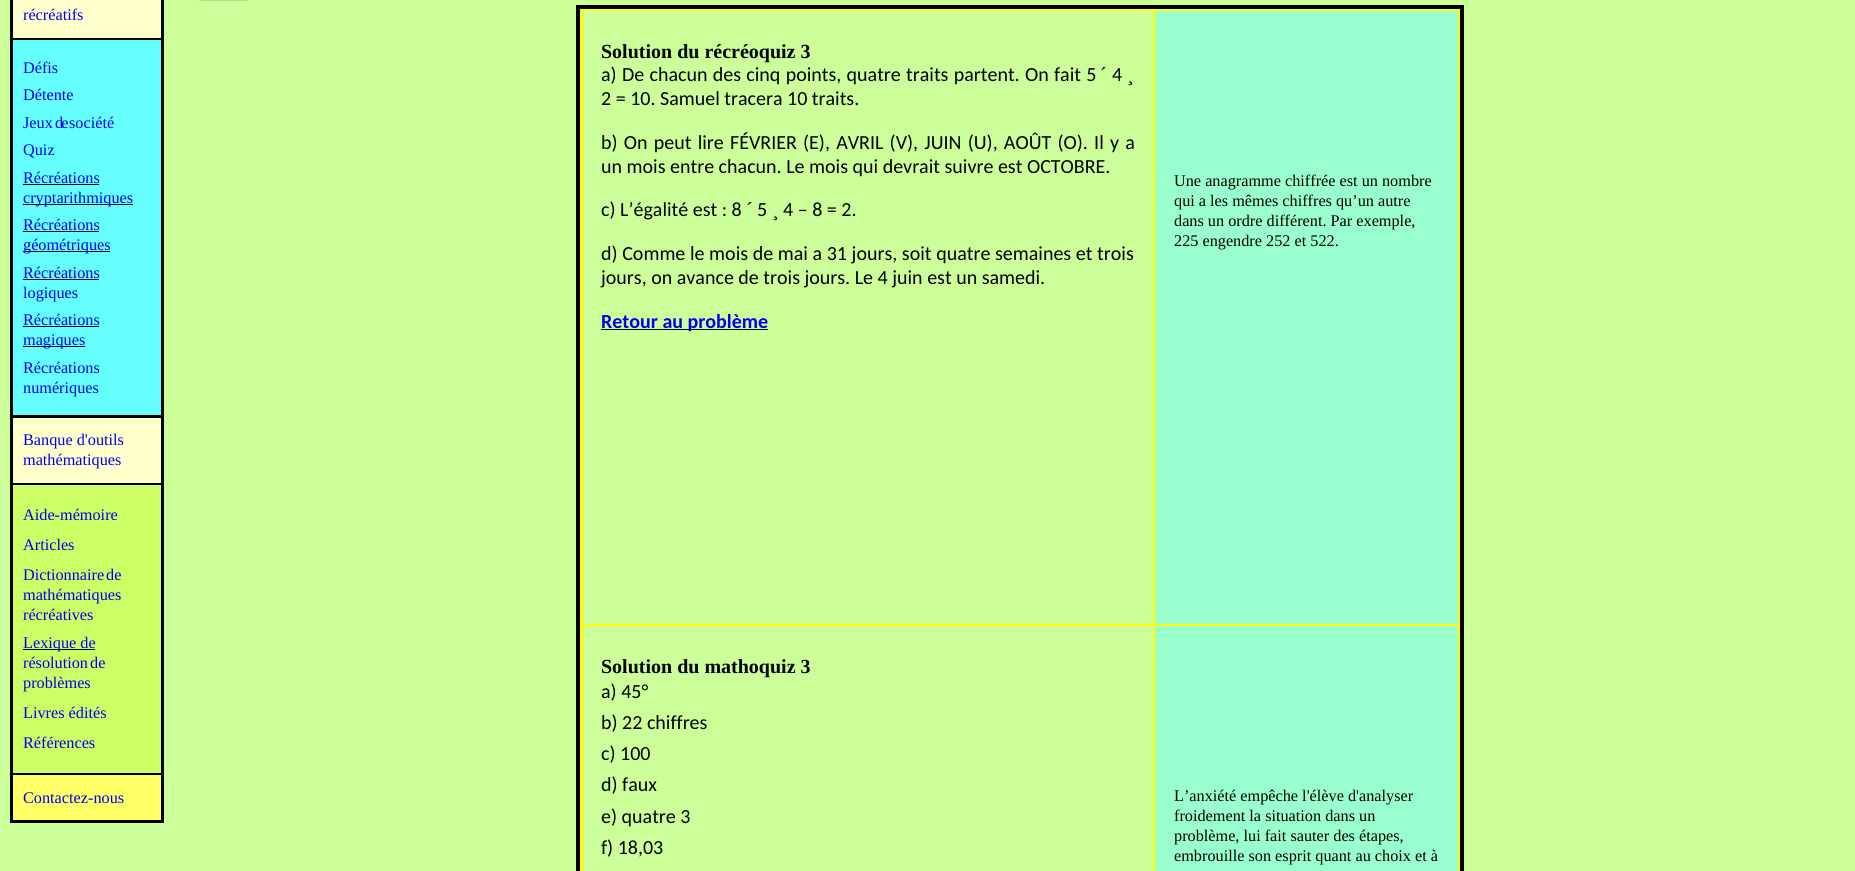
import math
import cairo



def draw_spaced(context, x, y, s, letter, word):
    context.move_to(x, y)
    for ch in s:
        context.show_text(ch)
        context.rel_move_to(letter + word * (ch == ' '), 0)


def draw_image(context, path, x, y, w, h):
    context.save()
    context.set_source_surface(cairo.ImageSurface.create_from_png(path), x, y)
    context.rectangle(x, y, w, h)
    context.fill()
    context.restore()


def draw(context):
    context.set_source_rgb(204 / 255, 1, 153 / 255)
    context.paint()
    context.set_source_rgb(0, 0, 0)
    context.rectangle(10, 0, 154, 823)
    context.fill()
    context.set_source_rgb(1, 1, 204 / 255)
    context.rectangle(13, 0, 148, 38)
    context.fill()
    context.set_source_rgb(102 / 255, 1, 1)
    context.rectangle(13, 40, 148, 375)
    context.fill()
    context.set_source_rgb(0, 0, 0)
    context.rectangle(23, 184, 76, 1)
    context.fill()
    context.rectangle(23, 204, 110, 1)
    context.fill()
    context.rectangle(23, 231, 76, 1)
    context.fill()
    context.rectangle(23, 251, 87, 1)
    context.fill()
    context.rectangle(23, 279, 76, 1)
    context.fill()
    context.rectangle(23, 326, 76, 1)
    context.fill()
    context.rectangle(23, 346, 62, 1)
    context.fill()
    context.set_source_rgb(1, 1, 204 / 255)
    context.rectangle(13, 418, 148, 65)
    context.fill()
    context.set_source_rgb(204 / 255, 1, 102 / 255)
    context.rectangle(13, 485, 148, 288)
    context.fill()
    context.set_source_rgb(0, 0, 0)
    context.rectangle(23, 649, 72, 1)
    context.fill()
    context.set_source_rgb(1, 1, 102 / 255)
    context.rectangle(13, 775, 148, 45)
    context.fill()
    draw_image(context, "images/1.png", 198, 0, 51, 1)
    context.set_source_rgb(1, 1, 0)
    context.rectangle(578, 7, 884, 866)
    context.fill_preserve()
    context.set_source_rgb(0, 0, 0)
    context.set_line_width(4)
    context.stroke()
    context.set_source_rgb(204 / 255, 1, 153 / 255)
    context.rectangle(583, 11, 570, 613)
    context.fill()
    context.set_source_rgb(0, 0, 0)
    context.rectangle(601, 329, 167, 1)
    context.fill()
    context.set_source_rgb(153 / 255, 1, 204 / 255)
    context.rectangle(1155, 11, 303, 613)
    context.fill()
    context.set_source_rgb(204 / 255, 1, 153 / 255)
    context.rectangle(583, 626, 570, 245)
    context.fill()
    context.set_source_rgb(153 / 255, 1, 204 / 255)
    context.rectangle(1155, 626, 303, 245)
    context.fill()
    context.select_font_face("Liberation Serif")
    context.set_font_size(16.25)
    context.set_source_rgb(0, 0, 238 / 255)
    context.move_to(23, 20)
    context.show_text("récréatifs")
    context.move_to(23, 73)
    context.show_text("Défis")
    context.move_to(23, 100)
    context.show_text("Détente")
    context.move_to(23, 128)
    context.show_text("Jeux")
    draw_spaced(context, 55, 128, "de", -2, 0)
    context.move_to(69, 128)
    context.show_text("société")
    context.move_to(23, 155)
    context.show_text("Quiz")
    context.move_to(23, 183)
    context.show_text("Récréations")
    context.move_to(23, 203)
    context.show_text("cryptarithmiques")
    context.move_to(23, 230)
    context.show_text("Récréations")
    context.move_to(23, 250)
    context.show_text("géométriques")
    context.move_to(23, 278)
    context.show_text("Récréations")
    context.move_to(23, 298)
    context.show_text("logiques")
    context.move_to(23, 325)
    context.show_text("Récréations")
    context.move_to(23, 345)
    context.show_text("magiques")
    context.move_to(23, 373)
    context.show_text("Récréations")
    context.move_to(23, 393)
    context.show_text("numériques")
    context.move_to(23, 445)
    context.show_text("Banque d'outils")
    context.move_to(23, 465)
    context.show_text("mathématiques")
    context.move_to(23, 520)
    context.show_text("Aide-mémoire")
    context.move_to(23, 550)
    context.show_text("Articles")
    context.move_to(23, 580)
    context.show_text("Dictionnaire")
    context.move_to(106, 580)
    context.show_text("de")
    context.move_to(23, 600)
    context.show_text("mathématiques")
    context.move_to(23, 620)
    context.show_text("récréatives")
    context.move_to(23, 648)
    context.show_text("Lexique de")
    context.move_to(23, 668)
    context.show_text("résolution")
    context.move_to(90, 668)
    context.show_text("de")
    context.move_to(23, 688)
    context.show_text("problèmes")
    context.move_to(23, 718)
    context.show_text("Livres édités")
    context.move_to(23, 748)
    context.show_text("Références")
    context.move_to(23, 803)
    context.show_text("Contactez-nous")
    context.select_font_face("Liberation Serif", cairo.FontSlant.NORMAL, cairo.FontWeight.BOLD)
    context.set_font_size(20)
    context.set_source_rgb(0, 0, 0)
    context.move_to(601, 58)
    context.show_text("Solution du récréoquiz 3")
    context.select_font_face("Carlito")
    draw_spaced(context, 601, 81, "a) De chacun des cinq points, quatre traits partent. On fait 5", 0, 0.75)
    context.select_font_face("Liberation Serif")
    context.move_to(1100, 81)
    context.show_text("´")
    context.select_font_face("Carlito")
    context.move_to(1112, 81)
    context.show_text("4")
    context.select_font_face("Liberation Serif")
    context.move_to(1127, 81)
    context.show_text("¸")
    context.select_font_face("Carlito")
    context.move_to(601, 105)
    context.show_text("2 = 10. Samuel tracera 10 traits.")
    draw_spaced(context, 601, 149, "b) On peut lire FÉVRIER (E), AVRIL (V), JUIN (U), AOÛT (O). Il y a", 0, 1.7)
    context.move_to(601, 173)
    context.show_text("un mois entre chacun. Le mois qui devrait suivre est OCTOBRE.")
    context.move_to(601, 216)
    context.show_text("c) L’égalité est : 8")
    context.select_font_face("Liberation Serif")
    context.move_to(746, 216)
    context.show_text("´")
    context.select_font_face("Carlito")
    context.move_to(757, 216)
    context.show_text("5")
    context.move_to(783, 216)
    context.show_text("4 – 8 = 2.")
    context.select_font_face("Liberation Serif")
    context.move_to(772, 216)
    context.show_text("¸")
    context.select_font_face("Carlito")
    draw_spaced(context, 601, 260, "d) Comme le mois de mai a 31 jours, soit quatre semaines et trois", 0, 0.1)
    context.move_to(601, 284)
    context.show_text("jours, on avance de trois jours. Le 4 juin est un samedi.")
    context.select_font_face("Carlito", cairo.FontSlant.NORMAL, cairo.FontWeight.BOLD)
    context.set_source_rgb(0, 0, 238 / 255)
    context.move_to(601, 328)
    context.show_text("Retour au problème")
    context.select_font_face("Liberation Serif")
    context.set_font_size(16.25)
    context.set_source_rgb(0, 0, 0)
    context.move_to(1174, 186)
    context.show_text("Une anagramme chiffrée est un nombre")
    context.move_to(1174, 206)
    context.show_text("qui a les mêmes chiffres qu’un autre")
    context.move_to(1174, 226)
    context.show_text("dans un ordre différent. Par exemple,")
    context.move_to(1174, 246)
    context.show_text("225 engendre 252 et 522.")
    context.select_font_face("Liberation Serif", cairo.FontSlant.NORMAL, cairo.FontWeight.BOLD)
    context.set_font_size(20)
    context.move_to(601, 673)
    context.show_text("Solution du mathoquiz 3")
    context.select_font_face("Carlito")
    context.move_to(601, 698)
    context.show_text("a) 45°")
    context.move_to(601, 729)
    context.show_text("b) 22 chiffres")
    context.move_to(601, 760)
    context.show_text("c) 100")
    context.move_to(601, 791)
    context.show_text("d) faux")
    context.move_to(601, 823)
    context.show_text("e) quatre 3")
    context.move_to(601, 854)
    context.show_text("f) 18,03")
    context.select_font_face("Liberation Serif")
    context.set_font_size(16.25)
    context.move_to(1174, 801)
    context.show_text("L’anxiété empêche l'élève d'analyser")
    context.move_to(1174, 821)
    context.show_text("froidement la situation dans un")
    context.move_to(1174, 841)
    context.show_text("problème, lui fait sauter des étapes,")
    context.move_to(1174, 861)
    context.show_text("embrouille son esprit quant au choix et à")


surface = cairo.ImageSurface(cairo.Format.RGB24, 1855, 871)
context = cairo.Context(surface)
options = cairo.FontOptions()
options.set_hint_metrics(cairo.HintMetrics.OFF)
options.set_hint_style(cairo.HintStyle.NONE)
context.set_font_options(options)
context.set_miter_limit(4)
draw(context)
surface.write_to_png("out.png")
